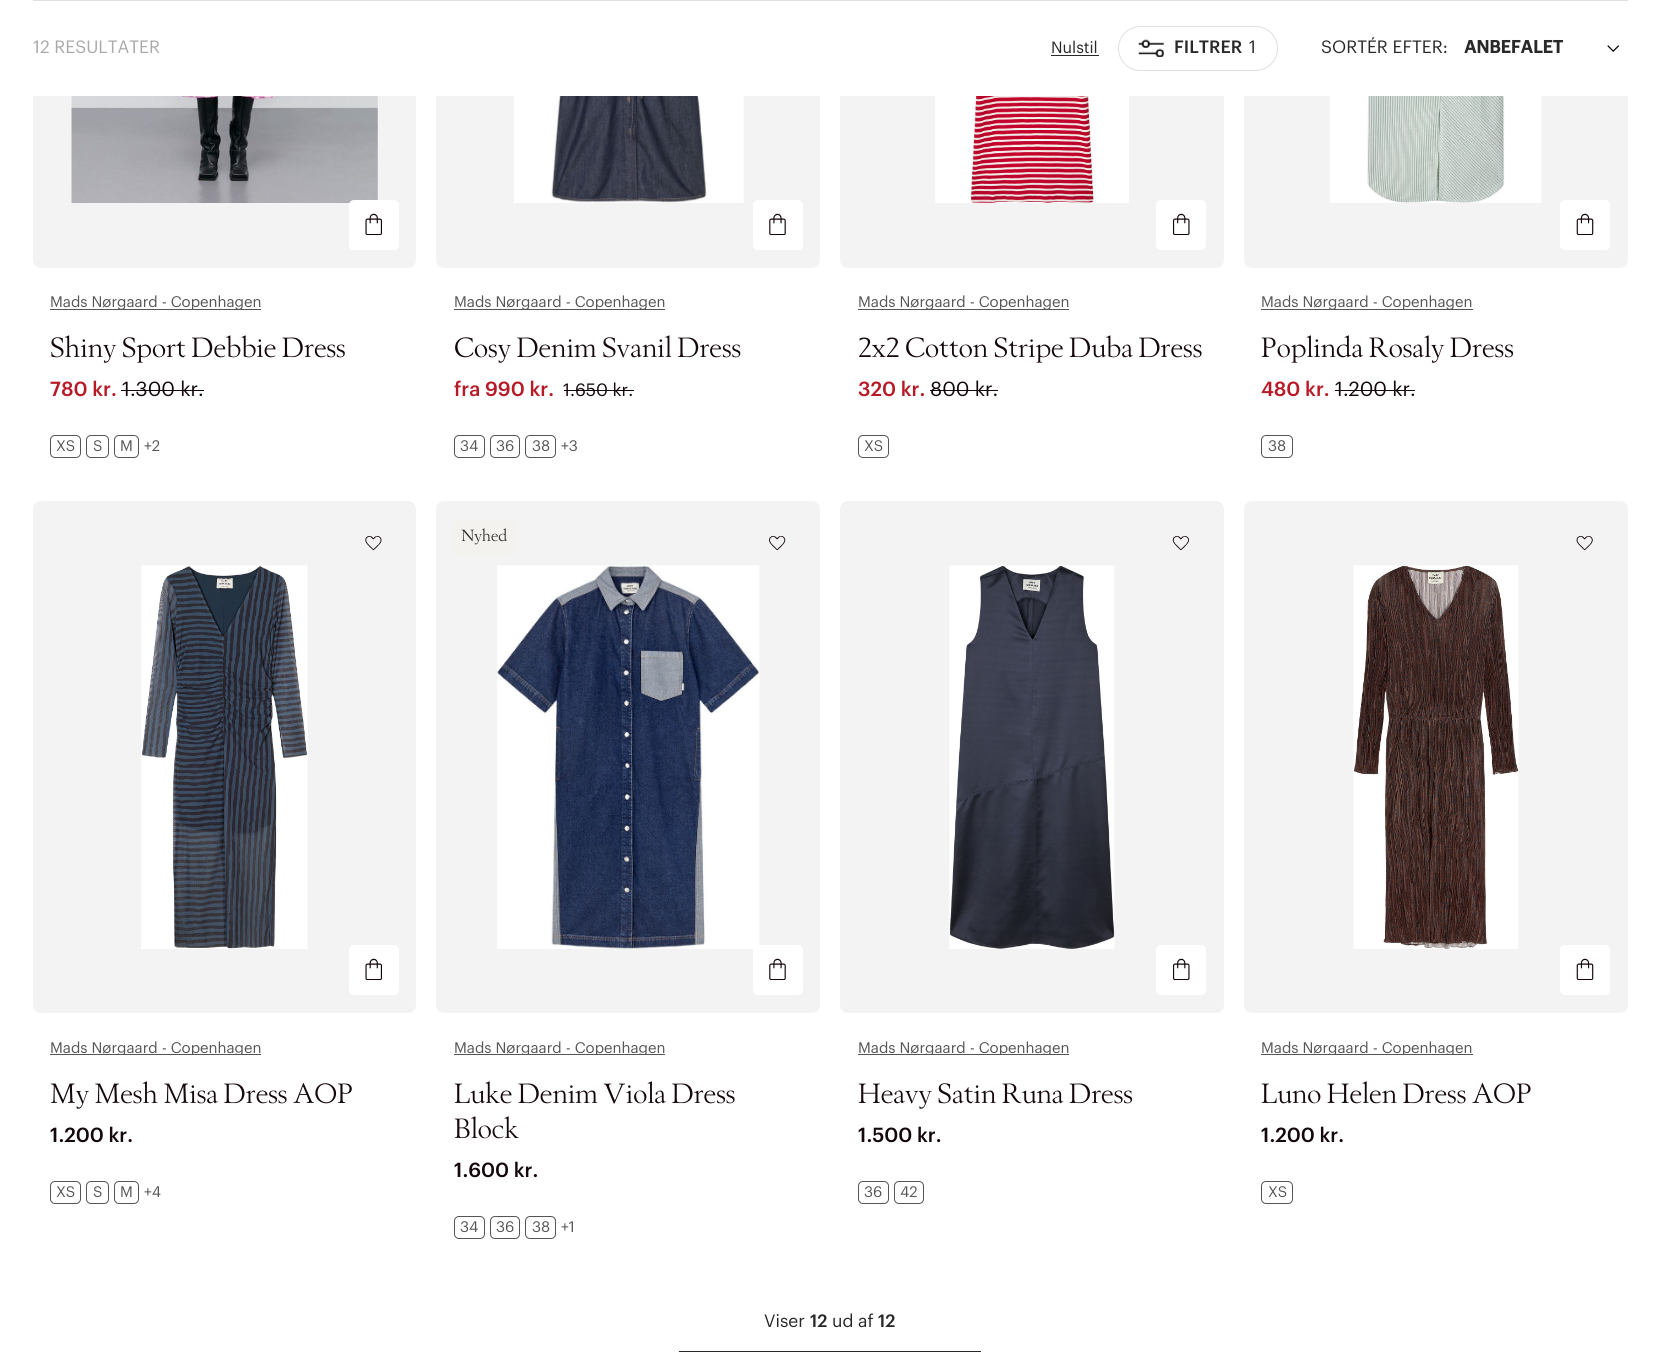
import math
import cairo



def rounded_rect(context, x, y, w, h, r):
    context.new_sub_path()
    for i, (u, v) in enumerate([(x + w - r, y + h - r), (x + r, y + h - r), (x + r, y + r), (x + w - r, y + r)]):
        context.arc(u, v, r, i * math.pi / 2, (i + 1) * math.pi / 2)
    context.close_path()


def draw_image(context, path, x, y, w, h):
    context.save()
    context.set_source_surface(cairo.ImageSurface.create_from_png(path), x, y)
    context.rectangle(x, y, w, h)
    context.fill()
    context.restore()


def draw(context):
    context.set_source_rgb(1, 1, 1)
    context.paint()
    context.set_source_rgb(243 / 255, 243 / 255, 243 / 255)
    rounded_rect(context, 33, -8, 383, 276, 8)
    context.fill()
    rounded_rect(context, 436, -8, 384, 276, 8)
    context.fill()
    rounded_rect(context, 840, -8, 384, 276, 8)
    context.fill()
    rounded_rect(context, 1244, -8, 384, 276, 8)
    context.fill()
    context.set_source_rgb(1, 1, 1)
    context.rectangle(33, 0, 1595, 96)
    context.fill()
    context.set_source_rgb(223 / 255, 223 / 255, 223 / 255)
    context.rectangle(33, 0, 1595, 1)
    context.fill()
    context.set_source_rgb(41 / 255, 41 / 255, 41 / 255)
    context.rectangle(1051, 55, 48, 1)
    context.fill()
    rounded_rect(context, 1118.5, 26.5, 159, 44, 22)
    context.set_source_rgb(223 / 255, 223 / 255, 223 / 255)
    context.set_line_width(1)
    context.stroke()
    draw_image(context, "images/1.png", 1138, 39, 26, 19)
    draw_image(context, "images/2.png", 1607, 45, 13, 7)
    draw_image(context, "images/3.png", 71, 96, 307, 107)
    context.set_source_rgb(1, 1, 1)
    rounded_rect(context, 349, 200, 50, 50, 5)
    context.fill()
    draw_image(context, "images/4.png", 365, 213, 17, 22)
    context.set_source_rgb(85 / 255, 85 / 255, 85 / 255)
    context.rectangle(50, 309, 211, 1)
    context.fill()
    context.set_source_rgb(20 / 255, 8 / 255, 12 / 255)
    context.rectangle(121, 390, 83, 1)
    context.fill()
    rounded_rect(context, 50.5, 435.5, 30, 22, 4.5)
    context.set_source_rgb(85 / 255, 85 / 255, 85 / 255)
    context.stroke()
    rounded_rect(context, 86.5, 435.5, 22, 22, 4.5)
    context.stroke()
    rounded_rect(context, 114.5, 435.5, 24, 22, 4.5)
    context.stroke()
    draw_image(context, "images/5.png", 514, 96, 230, 107)
    context.set_source_rgb(1, 1, 1)
    rounded_rect(context, 753, 200, 50, 50, 5)
    context.fill()
    draw_image(context, "images/6.png", 769, 213, 17, 22)
    context.set_source_rgb(85 / 255, 85 / 255, 85 / 255)
    context.rectangle(454, 309, 211, 1)
    context.fill()
    context.set_source_rgb(20 / 255, 8 / 255, 12 / 255)
    context.rectangle(564, 390, 70, 1)
    context.fill()
    rounded_rect(context, 454.5, 435.5, 30, 22, 4.5)
    context.set_source_rgb(85 / 255, 85 / 255, 85 / 255)
    context.stroke()
    rounded_rect(context, 490.5, 435.5, 29, 22, 4.5)
    context.stroke()
    rounded_rect(context, 525.5, 435.5, 30, 22, 4.5)
    context.stroke()
    draw_image(context, "images/7.png", 935, 96, 194, 107)
    context.set_source_rgb(1, 1, 1)
    rounded_rect(context, 1156, 200, 50, 50, 5)
    context.fill()
    draw_image(context, "images/8.png", 1173, 213, 17, 22)
    context.set_source_rgb(85 / 255, 85 / 255, 85 / 255)
    context.rectangle(858, 309, 211, 1)
    context.fill()
    context.set_source_rgb(20 / 255, 8 / 255, 12 / 255)
    context.rectangle(930, 390, 68, 1)
    context.fill()
    rounded_rect(context, 858.5, 435.5, 30, 22, 4.5)
    context.set_source_rgb(85 / 255, 85 / 255, 85 / 255)
    context.stroke()
    draw_image(context, "images/9.png", 1330, 96, 212, 107)
    context.set_source_rgb(1, 1, 1)
    rounded_rect(context, 1560, 200, 50, 50, 5)
    context.fill()
    draw_image(context, "images/10.png", 1576, 213, 18, 22)
    context.set_source_rgb(85 / 255, 85 / 255, 85 / 255)
    context.rectangle(1261, 309, 212, 1)
    context.fill()
    context.set_source_rgb(20 / 255, 8 / 255, 12 / 255)
    context.rectangle(1335, 390, 80, 1)
    context.fill()
    rounded_rect(context, 1261.5, 435.5, 31, 22, 4.5)
    context.set_source_rgb(85 / 255, 85 / 255, 85 / 255)
    context.stroke()
    context.set_source_rgb(243 / 255, 243 / 255, 243 / 255)
    rounded_rect(context, 33, 501, 383, 512, 8)
    context.fill()
    draw_image(context, "images/11.png", 365, 536, 17, 15)
    draw_image(context, "images/12.png", 141, 565, 167, 384)
    context.set_source_rgb(1, 1, 1)
    rounded_rect(context, 349, 945, 50, 50, 5)
    context.fill()
    draw_image(context, "images/4.png", 365, 958, 17, 22)
    context.set_source_rgb(85 / 255, 85 / 255, 85 / 255)
    context.rectangle(50, 1054, 211, 1)
    context.fill()
    rounded_rect(context, 50.5, 1181.5, 30, 22, 4.5)
    context.stroke()
    rounded_rect(context, 86.5, 1181.5, 22, 22, 4.5)
    context.stroke()
    rounded_rect(context, 114.5, 1181.5, 24, 22, 4.5)
    context.stroke()
    context.set_source_rgb(243 / 255, 243 / 255, 243 / 255)
    rounded_rect(context, 436, 501, 384, 512, 8)
    context.fill()
    context.set_source_rgb(243 / 255, 242 / 255, 238 / 255)
    rounded_rect(context, 454, 519, 62, 36, 5)
    context.fill()
    draw_image(context, "images/13.png", 769, 536, 17, 15)
    draw_image(context, "images/14.png", 497, 565, 263, 384)
    context.set_source_rgb(1, 1, 1)
    rounded_rect(context, 753, 945, 50, 50, 5)
    context.fill()
    draw_image(context, "images/6.png", 769, 958, 17, 22)
    context.set_source_rgb(85 / 255, 85 / 255, 85 / 255)
    context.rectangle(454, 1054, 211, 1)
    context.fill()
    rounded_rect(context, 454.5, 1216.5, 30, 22, 4.5)
    context.stroke()
    rounded_rect(context, 490.5, 1216.5, 29, 22, 4.5)
    context.stroke()
    rounded_rect(context, 525.5, 1216.5, 30, 22, 4.5)
    context.stroke()
    context.set_source_rgb(243 / 255, 243 / 255, 243 / 255)
    rounded_rect(context, 840, 501, 384, 512, 8)
    context.fill()
    draw_image(context, "images/15.png", 1172, 536, 17, 15)
    draw_image(context, "images/16.png", 949, 565, 166, 384)
    context.set_source_rgb(1, 1, 1)
    rounded_rect(context, 1156, 945, 50, 50, 5)
    context.fill()
    draw_image(context, "images/8.png", 1173, 958, 17, 22)
    context.set_source_rgb(85 / 255, 85 / 255, 85 / 255)
    context.rectangle(858, 1054, 211, 1)
    context.fill()
    rounded_rect(context, 858.5, 1181.5, 30, 22, 4.5)
    context.stroke()
    rounded_rect(context, 894.5, 1181.5, 29, 22, 4.5)
    context.stroke()
    context.set_source_rgb(243 / 255, 243 / 255, 243 / 255)
    rounded_rect(context, 1244, 501, 384, 512, 8)
    context.fill()
    draw_image(context, "images/17.png", 1576, 536, 17, 15)
    draw_image(context, "images/18.png", 1353, 565, 166, 384)
    context.set_source_rgb(1, 1, 1)
    rounded_rect(context, 1560, 945, 50, 50, 5)
    context.fill()
    draw_image(context, "images/10.png", 1576, 958, 18, 22)
    context.set_source_rgb(85 / 255, 85 / 255, 85 / 255)
    context.rectangle(1261, 1054, 212, 1)
    context.fill()
    rounded_rect(context, 1261.5, 1181.5, 31, 22, 4.5)
    context.stroke()
    context.set_source_rgb(41 / 255, 41 / 255, 41 / 255)
    context.rectangle(679, 1351, 302, 1)
    context.fill()
    context.select_font_face("Graphik")
    context.set_font_size(17.5)
    context.set_source_rgb(169 / 255, 169 / 255, 169 / 255)
    context.move_to(33, 53)
    context.show_text("12 RESULTATER")
    context.set_font_size(16)
    context.set_source_rgb(41 / 255, 41 / 255, 41 / 255)
    context.move_to(1051, 53)
    context.show_text("Nulstil")
    context.select_font_face("Graphik Medium")
    context.set_font_size(17.5)
    context.move_to(1174, 53)
    context.show_text("FILTRER")
    context.select_font_face("Graphik")
    context.move_to(1249, 53)
    context.show_text("1")
    context.move_to(1321, 53)
    context.show_text("SORTÉR EFTER:")
    context.select_font_face("Graphik", cairo.FontSlant.NORMAL, cairo.FontWeight.BOLD)
    context.move_to(1464, 53)
    context.show_text("ANBEFALET")
    context.select_font_face("Graphik")
    context.set_font_size(15)
    context.set_source_rgb(85 / 255, 85 / 255, 85 / 255)
    context.move_to(50, 307)
    context.show_text("Mads Nørgaard - Copenhagen")
    context.select_font_face("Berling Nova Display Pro")
    context.set_font_size(27.5)
    context.set_source_rgb(20 / 255, 8 / 255, 12 / 255)
    context.move_to(50, 357)
    context.show_text("Shiny Sport Debbie Dress")
    context.select_font_face("Graphik Medium")
    context.set_font_size(20)
    context.set_source_rgb(183 / 255, 25 / 255, 38 / 255)
    context.move_to(50, 396)
    context.show_text("780 kr.")
    context.select_font_face("Graphik")
    context.set_source_rgb(20 / 255, 8 / 255, 12 / 255)
    context.move_to(122, 396)
    context.show_text("1.300 kr.")
    context.set_font_size(15)
    context.set_source_rgb(85 / 255, 85 / 255, 85 / 255)
    context.move_to(56, 451)
    context.show_text("XS")
    context.move_to(93, 451)
    context.show_text("S")
    context.move_to(120, 451)
    context.show_text("M")
    context.move_to(144, 451)
    context.show_text("+2")
    context.move_to(454, 307)
    context.show_text("Mads Nørgaard - Copenhagen")
    context.select_font_face("Berling Nova Display Pro")
    context.set_font_size(27.5)
    context.set_source_rgb(20 / 255, 8 / 255, 12 / 255)
    context.move_to(454, 357)
    context.show_text("Cosy Denim Svanil Dress")
    context.select_font_face("Graphik Medium")
    context.set_font_size(20)
    context.set_source_rgb(183 / 255, 25 / 255, 38 / 255)
    context.move_to(454, 396)
    context.show_text("fra 990 kr.")
    context.select_font_face("Graphik")
    context.set_font_size(17.5)
    context.set_source_rgb(20 / 255, 8 / 255, 12 / 255)
    context.move_to(563, 396)
    context.show_text("1.650 kr.")
    context.set_font_size(15)
    context.set_source_rgb(85 / 255, 85 / 255, 85 / 255)
    context.move_to(460, 451)
    context.show_text("34")
    context.move_to(496, 451)
    context.show_text("36")
    context.move_to(532, 451)
    context.show_text("38")
    context.move_to(561, 451)
    context.show_text("+3")
    context.move_to(858, 307)
    context.show_text("Mads Nørgaard - Copenhagen")
    context.select_font_face("Berling Nova Display Pro")
    context.set_font_size(27.5)
    context.set_source_rgb(20 / 255, 8 / 255, 12 / 255)
    context.move_to(858, 357)
    context.show_text("2x2 Cotton Stripe Duba Dress")
    context.select_font_face("Graphik Medium")
    context.set_font_size(20)
    context.set_source_rgb(183 / 255, 25 / 255, 38 / 255)
    context.move_to(858, 396)
    context.show_text("320 kr.")
    context.select_font_face("Graphik")
    context.set_source_rgb(20 / 255, 8 / 255, 12 / 255)
    context.move_to(930, 396)
    context.show_text("800 kr.")
    context.set_font_size(15)
    context.set_source_rgb(85 / 255, 85 / 255, 85 / 255)
    context.move_to(864, 451)
    context.show_text("XS")
    context.move_to(1261, 307)
    context.show_text("Mads Nørgaard - Copenhagen")
    context.select_font_face("Berling Nova Display Pro")
    context.set_font_size(27.5)
    context.set_source_rgb(20 / 255, 8 / 255, 12 / 255)
    context.move_to(1261, 357)
    context.show_text("Poplinda Rosaly Dress")
    context.select_font_face("Graphik Medium")
    context.set_font_size(20)
    context.set_source_rgb(183 / 255, 25 / 255, 38 / 255)
    context.move_to(1261, 396)
    context.show_text("480 kr.")
    context.select_font_face("Graphik")
    context.set_source_rgb(20 / 255, 8 / 255, 12 / 255)
    context.move_to(1335, 396)
    context.show_text("1.200 kr.")
    context.set_font_size(15)
    context.set_source_rgb(85 / 255, 85 / 255, 85 / 255)
    context.move_to(1268, 451)
    context.show_text("38")
    context.save()
    context.rectangle(50, 1040, 211, 15)
    context.clip()
    context.move_to(50, 1053)
    context.show_text("Mads Nørgaard - Copenhagen")
    context.restore()
    context.select_font_face("Berling Nova Display Pro")
    context.set_font_size(27.5)
    context.set_source_rgb(20 / 255, 8 / 255, 12 / 255)
    context.move_to(50, 1103)
    context.show_text("My Mesh Misa Dress AOP")
    context.select_font_face("Graphik Medium")
    context.set_font_size(20)
    context.move_to(50, 1142)
    context.show_text("1.200 kr.")
    context.select_font_face("Graphik")
    context.set_font_size(15)
    context.set_source_rgb(85 / 255, 85 / 255, 85 / 255)
    context.move_to(56, 1197)
    context.show_text("XS")
    context.move_to(93, 1197)
    context.show_text("S")
    context.move_to(120, 1197)
    context.show_text("M")
    context.move_to(144, 1197)
    context.show_text("+4")
    context.select_font_face("Berling Nova Display Pro")
    context.set_font_size(16)
    context.set_source_rgb(41 / 255, 41 / 255, 41 / 255)
    context.move_to(461, 541)
    context.show_text("Nyhed")
    context.save()
    context.rectangle(454, 1040, 211, 15)
    context.clip()
    context.select_font_face("Graphik")
    context.set_font_size(15)
    context.set_source_rgb(85 / 255, 85 / 255, 85 / 255)
    context.move_to(454, 1053)
    context.show_text("Mads Nørgaard - Copenhagen")
    context.restore()
    context.set_font_size(27.5)
    context.set_source_rgb(20 / 255, 8 / 255, 12 / 255)
    context.move_to(454, 1103)
    context.show_text("Luke Denim Viola Dress")
    context.move_to(454, 1138)
    context.show_text("Block")
    context.select_font_face("Graphik Medium")
    context.set_font_size(20)
    context.move_to(454, 1177)
    context.show_text("1.600 kr.")
    context.select_font_face("Graphik")
    context.set_font_size(15)
    context.set_source_rgb(85 / 255, 85 / 255, 85 / 255)
    context.move_to(460, 1232)
    context.show_text("34")
    context.move_to(496, 1232)
    context.show_text("36")
    context.move_to(532, 1232)
    context.show_text("38")
    context.move_to(561, 1232)
    context.show_text("+1")
    context.save()
    context.rectangle(858, 1040, 211, 15)
    context.clip()
    context.move_to(858, 1053)
    context.show_text("Mads Nørgaard - Copenhagen")
    context.restore()
    context.select_font_face("Berling Nova Display Pro")
    context.set_font_size(27.5)
    context.set_source_rgb(20 / 255, 8 / 255, 12 / 255)
    context.move_to(858, 1103)
    context.show_text("Heavy Satin Runa Dress")
    context.select_font_face("Graphik Medium")
    context.set_font_size(20)
    context.move_to(858, 1142)
    context.show_text("1.500 kr.")
    context.select_font_face("Graphik")
    context.set_font_size(15)
    context.set_source_rgb(85 / 255, 85 / 255, 85 / 255)
    context.move_to(864, 1197)
    context.show_text("36")
    context.move_to(900, 1197)
    context.show_text("42")
    context.save()
    context.rectangle(1261, 1040, 212, 15)
    context.clip()
    context.move_to(1261, 1053)
    context.show_text("Mads Nørgaard - Copenhagen")
    context.restore()
    context.select_font_face("Berling Nova Display Pro")
    context.set_font_size(27.5)
    context.set_source_rgb(20 / 255, 8 / 255, 12 / 255)
    context.move_to(1261, 1103)
    context.show_text("Luno Helen Dress AOP")
    context.select_font_face("Graphik Medium")
    context.set_font_size(20)
    context.move_to(1261, 1142)
    context.show_text("1.200 kr.")
    context.select_font_face("Graphik")
    context.set_font_size(15)
    context.set_source_rgb(85 / 255, 85 / 255, 85 / 255)
    context.move_to(1268, 1197)
    context.show_text("XS")
    context.set_font_size(17.5)
    context.set_source_rgb(41 / 255, 41 / 255, 41 / 255)
    context.move_to(764, 1327)
    context.show_text("Viser")
    context.select_font_face("Graphik Medium")
    context.move_to(810, 1327)
    context.show_text("12")
    context.select_font_face("Graphik")
    context.move_to(832, 1327)
    context.show_text("ud af")
    context.select_font_face("Graphik Medium")
    context.move_to(878, 1327)
    context.show_text("12")


surface = cairo.ImageSurface(cairo.Format.RGB24, 1659, 1367)
context = cairo.Context(surface)
options = cairo.FontOptions()
options.set_hint_metrics(cairo.HintMetrics.OFF)
options.set_hint_style(cairo.HintStyle.NONE)
context.set_font_options(options)
context.set_miter_limit(4)
draw(context)
surface.write_to_png("out.png")
